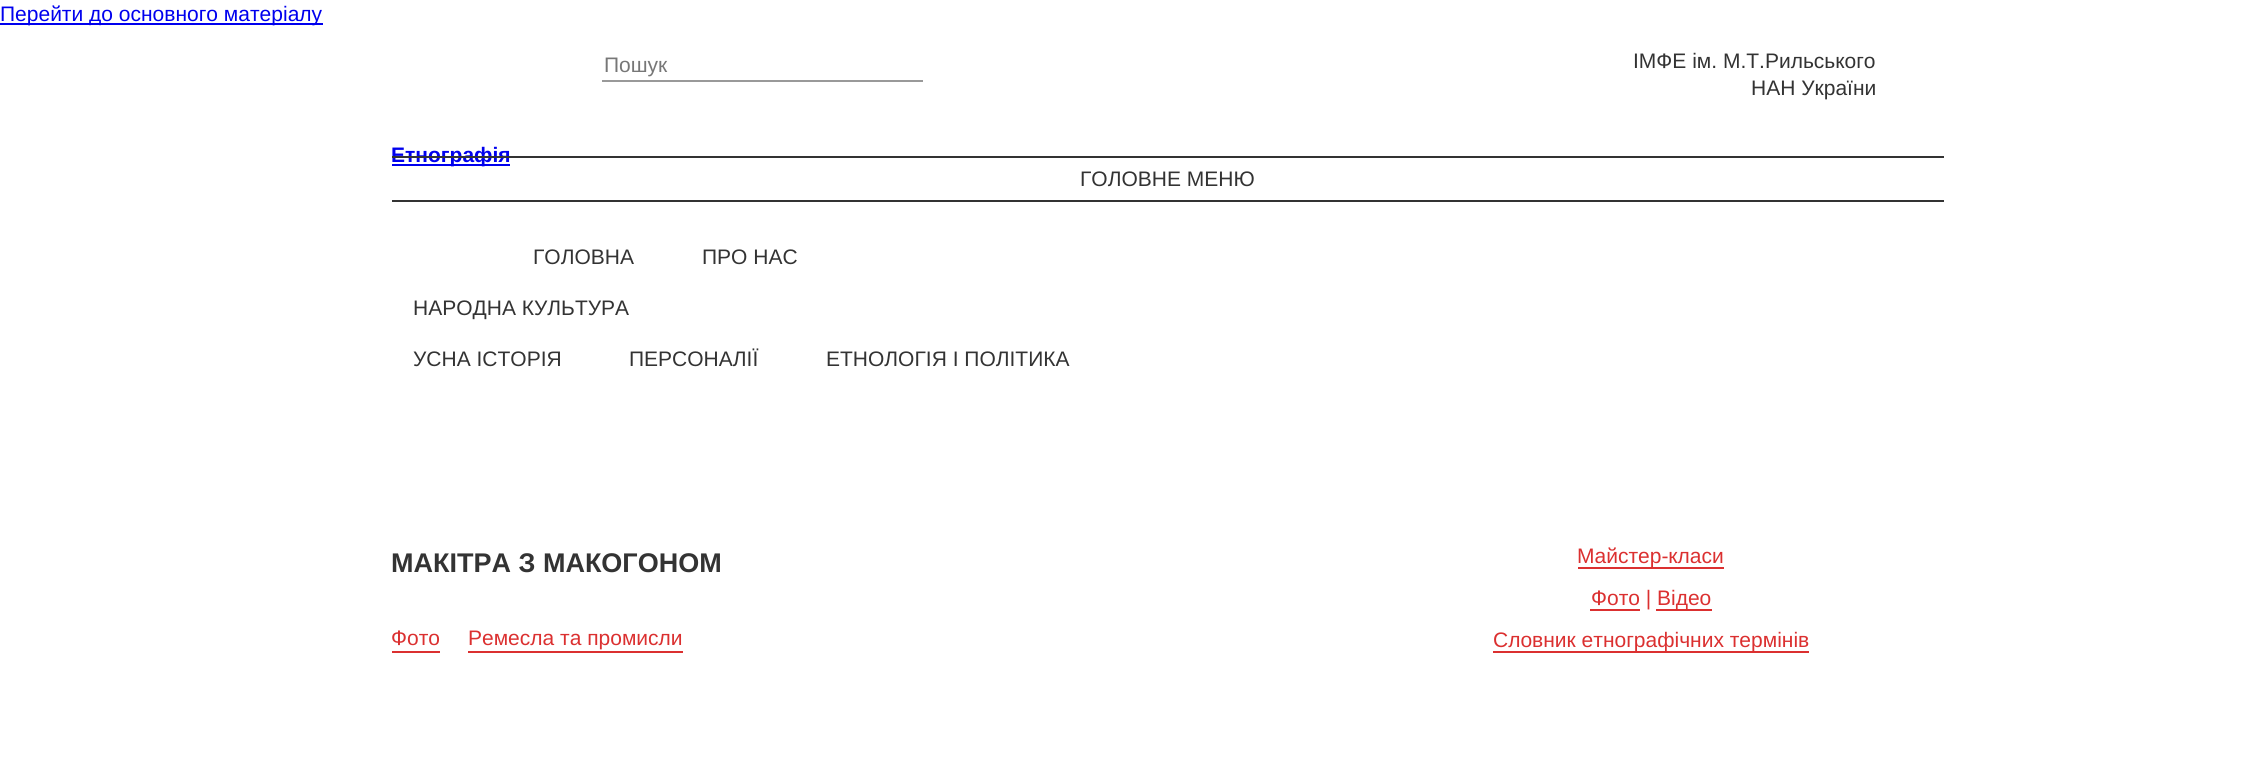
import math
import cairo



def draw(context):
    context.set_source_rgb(1, 1, 1)
    context.paint()
    context.set_source_rgb(0, 0, 238 / 255)
    context.rectangle(0, 23, 323, 2)
    context.fill()
    context.set_source_rgb(153 / 255, 153 / 255, 153 / 255)
    context.rectangle(602, 80, 321, 2)
    context.fill()
    context.set_source_rgb(51 / 255, 51 / 255, 51 / 255)
    context.rectangle(392, 200, 1552, 2)
    context.fill()
    context.set_source_rgb(0, 0, 238 / 255)
    context.rectangle(392, 164, 118, 2)
    context.fill()
    context.set_source_rgb(219 / 255, 48 / 255, 48 / 255)
    context.rectangle(392, 651, 48, 2)
    context.fill()
    context.rectangle(468, 651, 215, 2)
    context.fill()
    context.rectangle(1578, 567, 146, 2)
    context.fill()
    context.rectangle(1590, 609, 50, 2)
    context.fill()
    context.rectangle(1656, 609, 56, 2)
    context.fill()
    context.rectangle(1493, 651, 316, 2)
    context.fill()
    context.select_font_face("Liberation Sans")
    context.set_font_size(21)
    context.set_source_rgb(0, 0, 238 / 255)
    context.move_to(0, 21)
    context.show_text("Перейти до основного матеріалу")
    context.set_source_rgb(119 / 255, 119 / 255, 119 / 255)
    context.move_to(604, 72)
    context.show_text("Пошук")
    context.set_source_rgb(51 / 255, 51 / 255, 51 / 255)
    context.move_to(1633, 68)
    context.show_text("ІМФЕ ім. М.Т.Рильського")
    context.move_to(1751, 95)
    context.show_text("НАН України")
    context.move_to(1080, 186)
    context.show_text("ГОЛОВНЕ МЕНЮ")
    context.move_to(533, 264)
    context.show_text("ГОЛОВНА")
    context.move_to(702, 264)
    context.show_text("ПРО НАС")
    context.move_to(413, 315)
    context.show_text("НАРОДНА КУЛЬТУРА")
    context.move_to(413, 366)
    context.show_text("УСНА ІСТОРІЯ")
    context.move_to(629, 366)
    context.show_text("ПЕРСОНАЛІЇ")
    context.move_to(826, 366)
    context.show_text("ЕТНОЛОГІЯ І ПОЛІТИКА")
    context.select_font_face("Liberation Sans", cairo.FontSlant.NORMAL, cairo.FontWeight.BOLD)
    context.set_source_rgb(0, 0, 238 / 255)
    context.move_to(391, 162)
    context.show_text("Етнографія")
    context.set_source_rgb(51 / 255, 51 / 255, 51 / 255)
    context.rectangle(392, 156, 1552, 2)
    context.fill()
    context.set_font_size(27)
    context.move_to(391, 572)
    context.show_text("МАКІТРА З МАКОГОНОМ")
    context.select_font_face("Liberation Sans")
    context.set_font_size(21)
    context.set_source_rgb(219 / 255, 48 / 255, 48 / 255)
    context.move_to(391, 645)
    context.show_text("Фото")
    context.move_to(468, 645)
    context.show_text("Ремесла та промисли")
    context.move_to(1577, 563)
    context.show_text("Майстер-класи")
    context.move_to(1591, 605)
    context.show_text("Фото |")
    context.move_to(1657, 605)
    context.show_text("Відео")
    context.move_to(1493, 647)
    context.show_text("Словник етнографічних термінів")


surface = cairo.ImageSurface(cairo.Format.RGB24, 2266, 768)
context = cairo.Context(surface)
options = cairo.FontOptions()
options.set_hint_metrics(cairo.HintMetrics.OFF)
options.set_hint_style(cairo.HintStyle.NONE)
context.set_font_options(options)
context.set_miter_limit(4)
draw(context)
surface.write_to_png("out.png")
